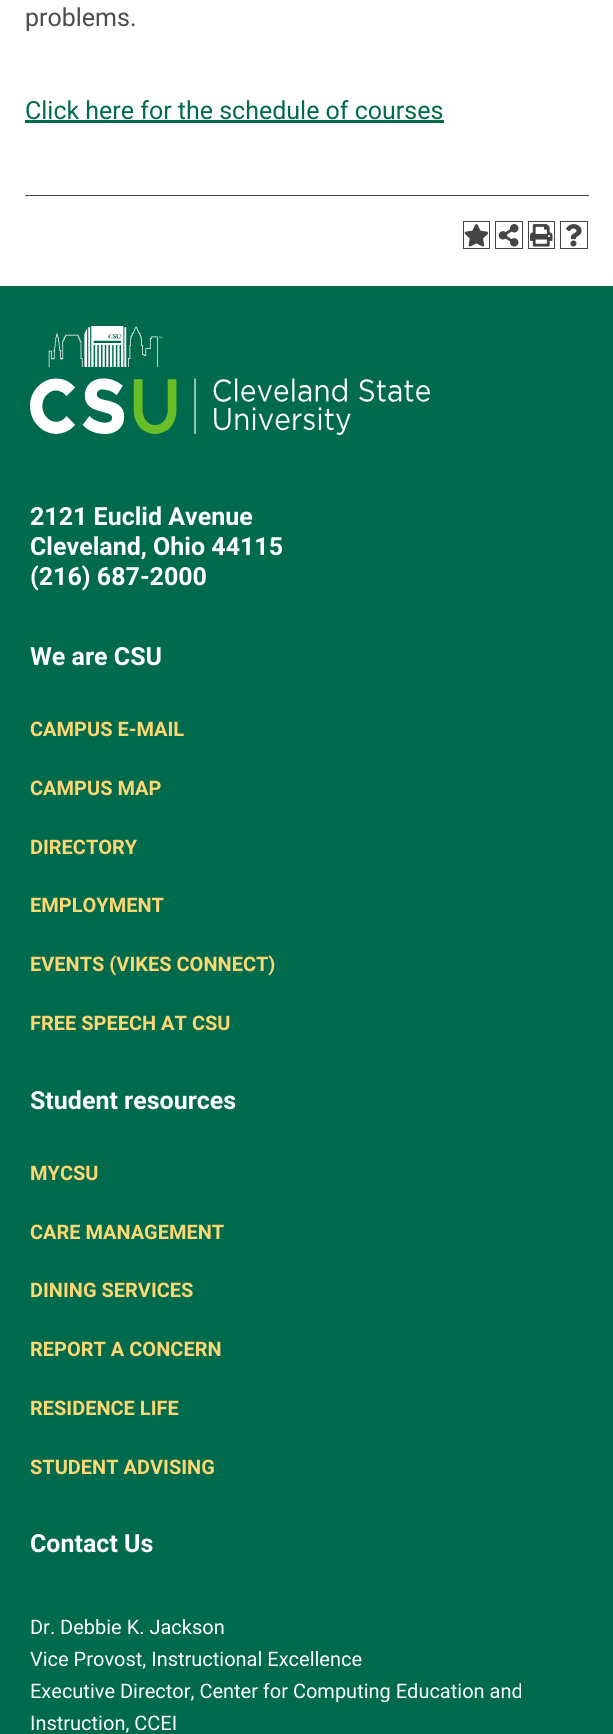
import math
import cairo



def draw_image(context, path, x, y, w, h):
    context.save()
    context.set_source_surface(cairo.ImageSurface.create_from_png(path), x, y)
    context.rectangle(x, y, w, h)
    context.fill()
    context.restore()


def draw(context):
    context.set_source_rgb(1, 1, 1)
    context.paint()
    context.set_source_rgb(0, 106 / 255, 77 / 255)
    context.rectangle(25, 120, 419, 3)
    context.fill()
    context.set_source_rgb(68 / 255, 68 / 255, 68 / 255)
    context.rectangle(25, 195, 564, 1)
    context.fill()
    context.rectangle(463.5, 221.5, 26, 27)
    context.set_line_width(1)
    context.stroke()
    draw_image(context, "images/1.png", 464, 224, 25, 23)
    context.rectangle(495.5, 221.5, 27, 27)
    context.stroke()
    draw_image(context, "images/2.png", 498, 224, 21, 23)
    context.rectangle(528.5, 221.5, 26, 27)
    context.stroke()
    draw_image(context, "images/3.png", 530, 224, 23, 23)
    context.rectangle(560.5, 221.5, 27, 27)
    context.stroke()
    draw_image(context, "images/4.png", 566, 224, 16, 23)
    context.set_source_rgb(0, 106 / 255, 77 / 255)
    context.rectangle(0, 286, 613, 1448)
    context.fill()
    draw_image(context, "images/5.png", 30, 326, 400, 109)
    context.select_font_face("Roboto")
    context.set_font_size(25)
    context.set_source_rgb(75 / 255, 75 / 255, 80 / 255)
    context.move_to(25, 26)
    context.show_text("problems.")
    context.set_source_rgb(0, 106 / 255, 77 / 255)
    context.move_to(25, 119)
    context.show_text("Click here for the schedule of courses")
    context.select_font_face("Roboto", cairo.FontSlant.NORMAL, cairo.FontWeight.BOLD)
    context.set_source_rgb(1, 1, 1)
    context.move_to(30, 525)
    context.show_text("2121 Euclid Avenue")
    context.move_to(30, 555)
    context.show_text("Cleveland, Ohio 44115")
    context.move_to(30, 585)
    context.show_text("(216) 687-2000")
    context.move_to(30, 665)
    context.show_text("We are CSU")
    context.set_font_size(20)
    context.set_source_rgb(1, 215 / 255, 114 / 255)
    context.move_to(30, 736)
    context.show_text("CAMPUS E-MAIL")
    context.move_to(30, 795)
    context.show_text("CAMPUS MAP")
    context.move_to(30, 854)
    context.show_text("DIRECTORY")
    context.move_to(30, 912)
    context.show_text("EMPLOYMENT")
    context.move_to(30, 971)
    context.show_text("EVENTS (VIKES CONNECT)")
    context.move_to(30, 1030)
    context.show_text("FREE SPEECH AT CSU")
    context.set_font_size(25)
    context.set_source_rgb(1, 1, 1)
    context.move_to(30, 1109)
    context.show_text("Student resources")
    context.set_font_size(20)
    context.set_source_rgb(1, 215 / 255, 114 / 255)
    context.move_to(30, 1180)
    context.show_text("MYCSU")
    context.move_to(30, 1239)
    context.show_text("CARE MANAGEMENT")
    context.move_to(30, 1297)
    context.show_text("DINING SERVICES")
    context.move_to(30, 1356)
    context.show_text("REPORT A CONCERN")
    context.move_to(30, 1415)
    context.show_text("RESIDENCE LIFE")
    context.move_to(30, 1474)
    context.show_text("STUDENT ADVISING")
    context.set_font_size(25)
    context.set_source_rgb(1, 1, 1)
    context.move_to(30, 1552)
    context.show_text("Contact Us")
    context.select_font_face("Roboto")
    context.set_font_size(20)
    context.move_to(30, 1634)
    context.show_text("Dr. Debbie K. Jackson")
    context.move_to(30, 1666)
    context.show_text("Vice Provost, Instructional Excellence")
    context.move_to(30, 1698)
    context.show_text("Executive Director, Center for Computing Education and")
    context.move_to(30, 1730)
    context.show_text("Instruction, CCEI")


surface = cairo.ImageSurface(cairo.Format.RGB24, 613, 1734)
context = cairo.Context(surface)
options = cairo.FontOptions()
options.set_hint_metrics(cairo.HintMetrics.OFF)
options.set_hint_style(cairo.HintStyle.NONE)
context.set_font_options(options)
context.set_miter_limit(4)
draw(context)
surface.write_to_png("out.png")
